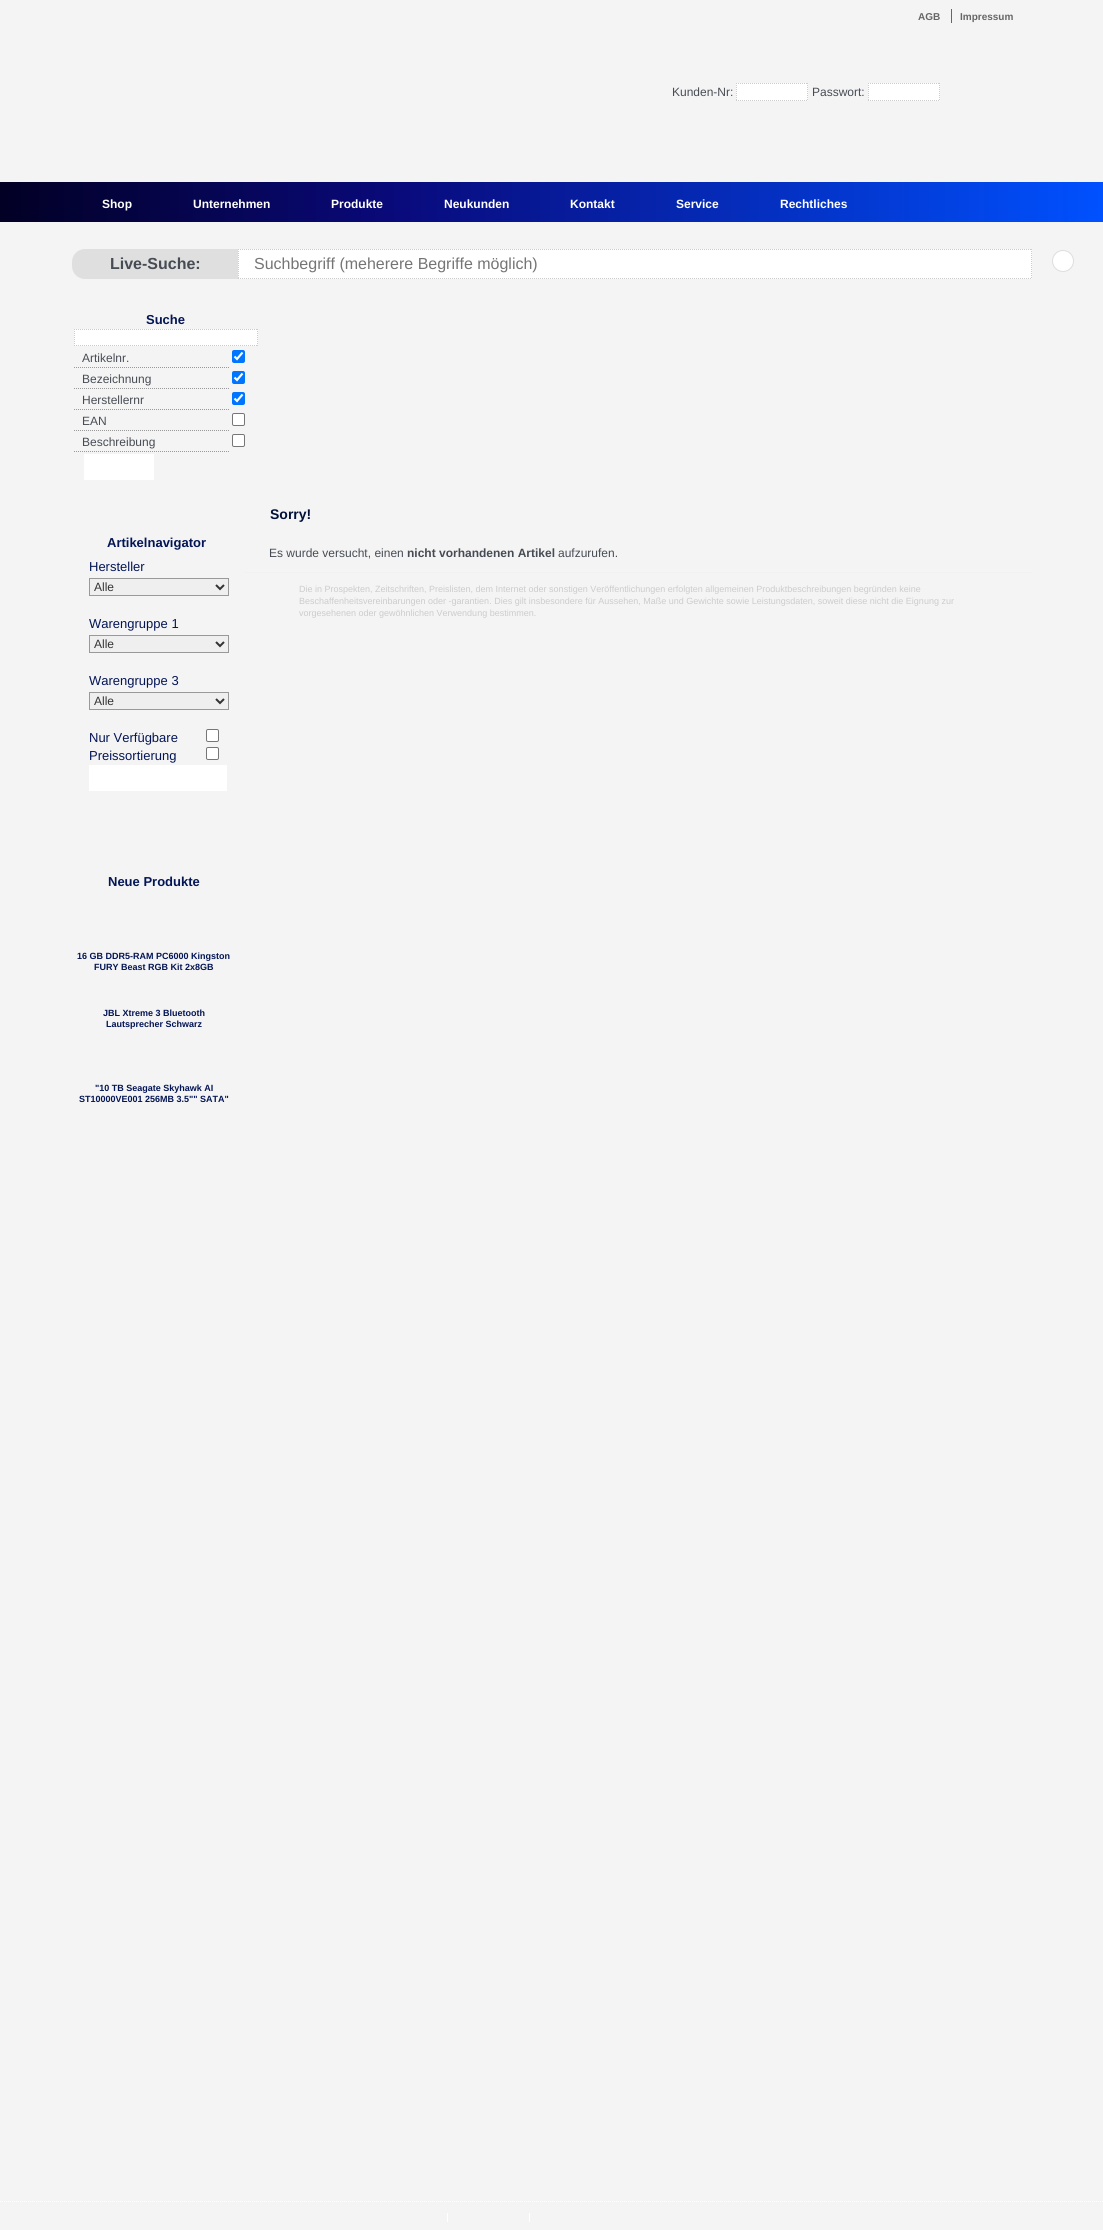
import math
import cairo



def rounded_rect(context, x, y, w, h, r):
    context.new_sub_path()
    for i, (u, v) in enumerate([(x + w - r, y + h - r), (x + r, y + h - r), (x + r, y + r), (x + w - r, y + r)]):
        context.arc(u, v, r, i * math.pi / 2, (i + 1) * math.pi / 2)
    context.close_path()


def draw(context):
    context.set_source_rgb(244 / 255, 244 / 255, 244 / 255)
    context.paint()
    gradient = cairo.LinearGradient(0, 202, 1103, 202)
    gradient.add_color_stop_rgba(0, 2 / 255, 0, 36 / 255, 1)
    gradient.add_color_stop_rgba(0.35, 9 / 255, 9 / 255, 121 / 255, 1)
    gradient.add_color_stop_rgba(1, 0, 81 / 255, 1, 1)
    context.set_source(gradient)
    context.rectangle(0, 182, 1103, 40)
    context.fill()
    context.set_source_rgb(102 / 255, 102 / 255, 102 / 255)
    context.rectangle(951, 9, 1, 14)
    context.fill()
    context.set_source_rgb(1, 1, 1)
    context.rectangle(736, 83, 72, 18)
    context.fill()
    context.new_path()
    context.move_to(736, 83.5)
    context.line_to(808, 83.5)
    context.set_source_rgb(204 / 255, 204 / 255, 204 / 255)
    context.set_line_width(1)
    context.set_dash([1, 1])
    context.stroke()
    context.new_path()
    context.move_to(807.5, 83)
    context.line_to(807.5, 101)
    context.stroke()
    context.new_path()
    context.move_to(736, 100.5)
    context.line_to(808, 100.5)
    context.stroke()
    context.new_path()
    context.move_to(736.5, 83)
    context.line_to(736.5, 101)
    context.stroke()
    context.set_source_rgb(1, 1, 1)
    context.rectangle(868, 83, 72, 18)
    context.fill()
    context.new_path()
    context.move_to(868, 83.5)
    context.line_to(940, 83.5)
    context.set_source_rgb(204 / 255, 204 / 255, 204 / 255)
    context.stroke()
    context.new_path()
    context.move_to(939.5, 83)
    context.line_to(939.5, 101)
    context.stroke()
    context.new_path()
    context.move_to(868, 100.5)
    context.line_to(940, 100.5)
    context.stroke()
    context.new_path()
    context.move_to(868.5, 83)
    context.line_to(868.5, 101)
    context.stroke()
    context.set_source_rgb(223 / 255, 223 / 255, 223 / 255)
    rounded_rect(context, 72, 249, 960, 30, 13)
    context.fill()
    context.set_source_rgb(1, 1, 1)
    context.rectangle(238, 249, 794, 30)
    context.fill()
    context.new_path()
    context.move_to(238, 249.5)
    context.line_to(1032, 249.5)
    context.set_source_rgb(204 / 255, 204 / 255, 204 / 255)
    context.stroke()
    context.new_path()
    context.move_to(1031.5, 249)
    context.line_to(1031.5, 279)
    context.stroke()
    context.new_path()
    context.move_to(238, 278.5)
    context.line_to(1032, 278.5)
    context.stroke()
    context.new_path()
    context.move_to(238.5, 249)
    context.line_to(238.5, 279)
    context.stroke()
    context.set_source_rgb(1, 1, 1)
    context.arc(1063, 261, 10.5, 0, 2 * math.pi)
    context.fill_preserve()
    context.set_source_rgb(221 / 255, 221 / 255, 221 / 255)
    context.set_dash([])
    context.stroke()
    context.set_source_rgb(1, 1, 1)
    context.rectangle(74, 329, 184, 17)
    context.fill()
    context.new_path()
    context.move_to(74, 329.5)
    context.line_to(258, 329.5)
    context.set_source_rgb(204 / 255, 204 / 255, 204 / 255)
    context.set_dash([1, 1])
    context.stroke()
    context.new_path()
    context.move_to(257.5, 329)
    context.line_to(257.5, 346)
    context.stroke()
    context.new_path()
    context.move_to(74, 345.5)
    context.line_to(258, 345.5)
    context.stroke()
    context.new_path()
    context.move_to(74.5, 329)
    context.line_to(74.5, 346)
    context.stroke()
    context.new_path()
    context.move_to(74, 367.5)
    context.line_to(230, 367.5)
    context.set_source_rgb(153 / 255, 153 / 255, 153 / 255)
    context.stroke()
    context.set_source_rgb(0, 117 / 255, 1)
    rounded_rect(context, 232, 350, 13, 13, 2)
    context.fill()
    context.new_path()
    context.move_to(234.5, 356.5)
    context.line_to(237, 359)
    context.line_to(242.5, 352.5)
    context.set_source_rgb(1, 1, 1)
    context.set_line_width(2.1)
    context.set_dash([])
    context.stroke()
    context.new_path()
    context.move_to(74, 388.5)
    context.line_to(230, 388.5)
    context.set_source_rgb(153 / 255, 153 / 255, 153 / 255)
    context.set_line_width(1)
    context.set_dash([1, 1])
    context.stroke()
    context.set_source_rgb(0, 117 / 255, 1)
    rounded_rect(context, 232, 371, 13, 13, 2)
    context.fill()
    context.new_path()
    context.move_to(234.5, 377.5)
    context.line_to(237, 380)
    context.line_to(242.5, 373.5)
    context.set_source_rgb(1, 1, 1)
    context.set_line_width(2.1)
    context.set_dash([])
    context.stroke()
    context.new_path()
    context.move_to(74, 409.5)
    context.line_to(230, 409.5)
    context.set_source_rgb(153 / 255, 153 / 255, 153 / 255)
    context.set_line_width(1)
    context.set_dash([1, 1])
    context.stroke()
    context.set_source_rgb(0, 117 / 255, 1)
    rounded_rect(context, 232, 392, 13, 13, 2)
    context.fill()
    context.new_path()
    context.move_to(234.5, 398.5)
    context.line_to(237, 401)
    context.line_to(242.5, 394.5)
    context.set_source_rgb(1, 1, 1)
    context.set_line_width(2.1)
    context.set_dash([])
    context.stroke()
    context.new_path()
    context.move_to(74, 430.5)
    context.line_to(230, 430.5)
    context.set_source_rgb(153 / 255, 153 / 255, 153 / 255)
    context.set_line_width(1)
    context.set_dash([1, 1])
    context.stroke()
    context.set_source_rgb(1, 1, 1)
    rounded_rect(context, 232.5, 413.5, 12, 12, 1.5)
    context.fill_preserve()
    context.set_source_rgb(118 / 255, 118 / 255, 118 / 255)
    context.set_dash([])
    context.stroke()
    context.new_path()
    context.move_to(74, 451.5)
    context.line_to(230, 451.5)
    context.set_source_rgb(153 / 255, 153 / 255, 153 / 255)
    context.set_dash([1, 1])
    context.stroke()
    context.set_source_rgb(1, 1, 1)
    rounded_rect(context, 232.5, 434.5, 12, 12, 1.5)
    context.fill_preserve()
    context.set_source_rgb(118 / 255, 118 / 255, 118 / 255)
    context.set_dash([])
    context.stroke()
    context.set_source_rgb(1, 1, 1)
    context.rectangle(84, 454, 70, 26)
    context.fill()
    context.set_source_rgb(239 / 255, 239 / 255, 239 / 255)
    context.rectangle(89.5, 578.5, 139, 17)
    context.fill_preserve()
    context.set_source_rgb(153 / 255, 153 / 255, 153 / 255)
    context.stroke()
    context.new_path()
    context.move_to(216, 585)
    context.line_to(220, 589)
    context.line_to(224, 585)
    context.set_source_rgb(51 / 255, 51 / 255, 51 / 255)
    context.set_line_width(2)
    context.stroke()
    context.set_source_rgb(239 / 255, 239 / 255, 239 / 255)
    context.rectangle(89.5, 635.5, 139, 17)
    context.fill_preserve()
    context.set_source_rgb(153 / 255, 153 / 255, 153 / 255)
    context.set_line_width(1)
    context.stroke()
    context.new_path()
    context.move_to(216, 642)
    context.line_to(220, 646)
    context.line_to(224, 642)
    context.set_source_rgb(51 / 255, 51 / 255, 51 / 255)
    context.set_line_width(2)
    context.stroke()
    context.set_source_rgb(239 / 255, 239 / 255, 239 / 255)
    context.rectangle(89.5, 692.5, 139, 17)
    context.fill_preserve()
    context.set_source_rgb(153 / 255, 153 / 255, 153 / 255)
    context.set_line_width(1)
    context.stroke()
    context.new_path()
    context.move_to(216, 699)
    context.line_to(220, 703)
    context.line_to(224, 699)
    context.set_source_rgb(51 / 255, 51 / 255, 51 / 255)
    context.set_line_width(2)
    context.stroke()
    context.set_source_rgb(1, 1, 1)
    rounded_rect(context, 206.5, 729.5, 12, 12, 1.5)
    context.fill_preserve()
    context.set_source_rgb(118 / 255, 118 / 255, 118 / 255)
    context.set_line_width(1)
    context.stroke()
    context.set_source_rgb(1, 1, 1)
    rounded_rect(context, 206.5, 747.5, 12, 12, 1.5)
    context.fill_preserve()
    context.set_source_rgb(118 / 255, 118 / 255, 118 / 255)
    context.stroke()
    context.set_source_rgb(1, 1, 1)
    context.rectangle(89, 765, 138, 26)
    context.fill()
    context.set_source_rgb(241 / 255, 241 / 255, 241 / 255)
    context.rectangle(244, 572, 788, 1)
    context.fill()
    context.new_path()
    context.move_to(0, 2201.5)
    context.line_to(1103, 2201.5)
    context.set_source_rgb(1, 1, 1)
    context.set_dash([1, 1])
    context.stroke()
    context.rectangle(447, 2213, 1, 9)
    context.fill()
    context.rectangle(529, 2213, 1, 9)
    context.fill()
    context.select_font_face("Liberation Sans", cairo.FontSlant.NORMAL, cairo.FontWeight.BOLD)
    context.set_font_size(10)
    context.set_source_rgb(102 / 255, 102 / 255, 102 / 255)
    context.move_to(918, 20)
    context.show_text("AGB")
    context.move_to(960, 20)
    context.show_text("Impressum")
    context.select_font_face("Liberation Sans")
    context.set_font_size(12)
    context.set_source_rgb(71 / 255, 76 / 255, 84 / 255)
    context.move_to(672, 96)
    context.show_text("Kunden-Nr:")
    context.move_to(812, 96)
    context.show_text("Passwort:")
    context.select_font_face("Liberation Sans", cairo.FontSlant.NORMAL, cairo.FontWeight.BOLD)
    context.set_source_rgb(1, 1, 1)
    context.move_to(102, 208)
    context.show_text("Shop")
    context.move_to(193, 208)
    context.show_text("Unternehmen")
    context.move_to(331, 208)
    context.show_text("Produkte")
    context.move_to(444, 208)
    context.show_text("Neukunden")
    context.move_to(570, 208)
    context.show_text("Kontakt")
    context.move_to(676, 208)
    context.show_text("Service")
    context.move_to(780, 208)
    context.show_text("Rechtliches")
    context.set_font_size(16)
    context.set_source_rgb(71 / 255, 76 / 255, 84 / 255)
    context.move_to(110, 269)
    context.show_text("Live-Suche:")
    context.select_font_face("Liberation Sans")
    context.set_source_rgb(117 / 255, 117 / 255, 117 / 255)
    context.move_to(254, 269)
    context.show_text("Suchbegriff (meherere Begriffe möglich)")
    context.select_font_face("Liberation Sans", cairo.FontSlant.NORMAL, cairo.FontWeight.BOLD)
    context.set_font_size(13)
    context.set_source_rgb(3 / 255, 21 / 255, 85 / 255)
    context.move_to(146, 324)
    context.show_text("Suche")
    context.select_font_face("Liberation Sans")
    context.set_font_size(12)
    context.set_source_rgb(71 / 255, 76 / 255, 84 / 255)
    context.move_to(82, 362)
    context.show_text("Artikelnr.")
    context.move_to(82, 383)
    context.show_text("Bezeichnung")
    context.move_to(82, 404)
    context.show_text("Herstellernr")
    context.move_to(82, 425)
    context.show_text("EAN")
    context.move_to(82, 446)
    context.show_text("Beschreibung")
    context.select_font_face("Liberation Sans", cairo.FontSlant.NORMAL, cairo.FontWeight.BOLD)
    context.set_font_size(13)
    context.set_source_rgb(3 / 255, 21 / 255, 85 / 255)
    context.move_to(107, 547)
    context.show_text("Artikelnavigator")
    context.select_font_face("Liberation Sans")
    context.move_to(89, 571)
    context.show_text("Hersteller")
    context.set_font_size(12)
    context.set_source_rgb(51 / 255, 51 / 255, 51 / 255)
    context.move_to(94, 591)
    context.show_text("Alle")
    context.set_font_size(13)
    context.set_source_rgb(3 / 255, 21 / 255, 85 / 255)
    context.move_to(89, 628)
    context.show_text("Warengruppe 1")
    context.set_font_size(12)
    context.set_source_rgb(51 / 255, 51 / 255, 51 / 255)
    context.move_to(94, 648)
    context.show_text("Alle")
    context.set_font_size(13)
    context.set_source_rgb(3 / 255, 21 / 255, 85 / 255)
    context.move_to(89, 685)
    context.show_text("Warengruppe 3")
    context.set_font_size(12)
    context.set_source_rgb(51 / 255, 51 / 255, 51 / 255)
    context.move_to(94, 705)
    context.show_text("Alle")
    context.set_font_size(13)
    context.set_source_rgb(3 / 255, 21 / 255, 85 / 255)
    context.move_to(89, 742)
    context.show_text("Nur Verfügbare")
    context.move_to(89, 760)
    context.show_text("Preissortierung")
    context.select_font_face("Liberation Sans", cairo.FontSlant.NORMAL, cairo.FontWeight.BOLD)
    context.move_to(108, 886)
    context.show_text("Neue Produkte")
    context.set_font_size(9)
    context.move_to(77, 959)
    context.show_text("16 GB DDR5-RAM PC6000 Kingston")
    context.move_to(94, 970)
    context.show_text("FURY Beast RGB Kit 2x8GB")
    context.move_to(103, 1016)
    context.show_text("JBL Xtreme 3 Bluetooth")
    context.move_to(106, 1027)
    context.show_text("Lautsprecher Schwarz")
    context.move_to(95, 1091)
    context.show_text("\"10 TB Seagate Skyhawk AI")
    context.move_to(79, 1102)
    context.show_text("ST10000VE001 256MB 3.5\"\" SATA\"")
    context.set_font_size(14)
    context.set_source_rgb(2 / 255, 16 / 255, 57 / 255)
    context.move_to(270, 519)
    context.show_text("Sorry!")
    context.select_font_face("Liberation Sans")
    context.set_font_size(12)
    context.set_source_rgb(71 / 255, 76 / 255, 84 / 255)
    context.move_to(269, 557)
    context.show_text("Es wurde versucht, einen")
    context.select_font_face("Liberation Sans", cairo.FontSlant.NORMAL, cairo.FontWeight.BOLD)
    context.move_to(407, 557)
    context.show_text("nicht vorhandenen Artikel")
    context.select_font_face("Liberation Sans")
    context.move_to(558, 557)
    context.show_text("aufzurufen.")
    context.set_font_size(9)
    context.set_source_rgb(204 / 255, 204 / 255, 204 / 255)
    context.move_to(299, 592)
    context.show_text("Die in Prospekten, Zeitschriften, Preislisten, dem Internet oder sonstigen Veröffentlichungen erfolgten allgemeinen Produktbeschreibungen begründen keine")
    context.move_to(299, 604)
    context.show_text("Beschaffenheitsvereinbarungen oder -garantien. Dies gilt insbesondere für Aussehen, Maße und Gewichte sowie Leistungsdaten, soweit diese nicht die Eignung zur")
    context.move_to(299, 616)
    context.show_text("vorgesehenen oder gewöhnlichen Verwendung bestimmen.")


surface = cairo.ImageSurface(cairo.Format.RGB24, 1103, 2230)
context = cairo.Context(surface)
options = cairo.FontOptions()
options.set_hint_metrics(cairo.HintMetrics.OFF)
options.set_hint_style(cairo.HintStyle.NONE)
context.set_font_options(options)
context.set_miter_limit(4)
draw(context)
surface.write_to_png("out.png")
